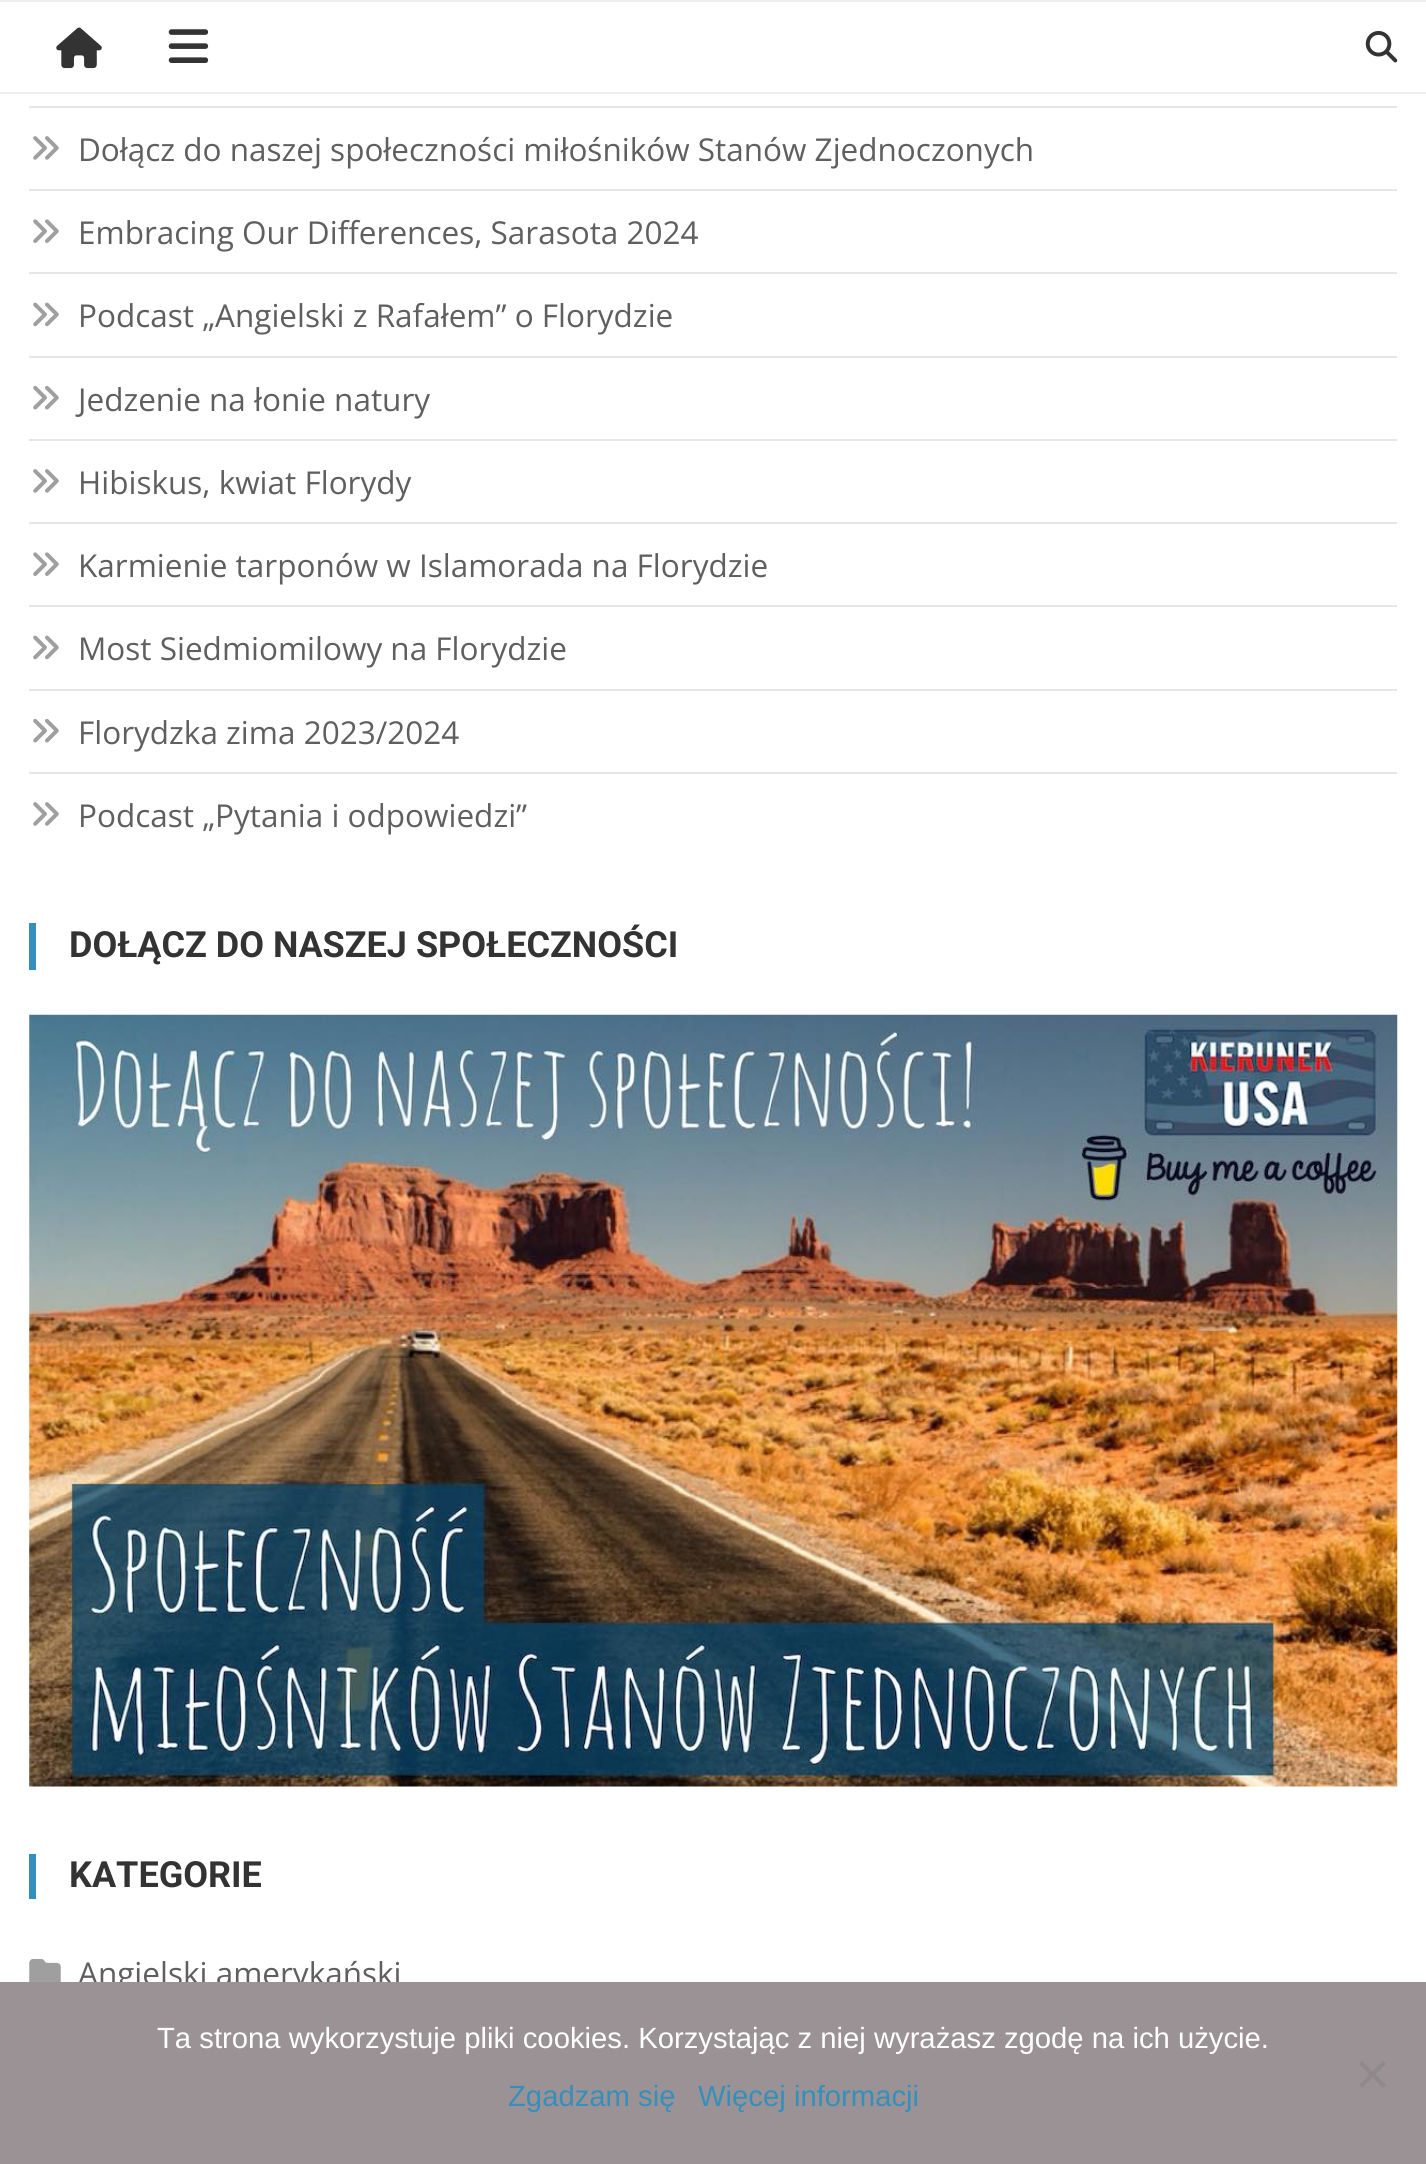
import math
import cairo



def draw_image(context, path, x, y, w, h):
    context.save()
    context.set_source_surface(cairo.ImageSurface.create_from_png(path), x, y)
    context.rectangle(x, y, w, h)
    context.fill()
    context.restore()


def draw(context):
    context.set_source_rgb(1, 1, 1)
    context.paint()
    context.set_source_rgb(238 / 255, 238 / 255, 238 / 255)
    context.rectangle(0, 0, 1426, 2)
    context.fill()
    context.rectangle(0, 92, 1426, 2)
    context.fill()
    draw_image(context, "images/1.png", 56, 27, 46, 42)
    draw_image(context, "images/2.png", 168, 29, 41, 34)
    draw_image(context, "images/3.png", 1365, 30, 33, 33)
    context.set_source_rgb(230 / 255, 230 / 255, 230 / 255)
    context.rectangle(29, 106, 1368, 2)
    context.fill()
    context.rectangle(29, 189, 1368, 2)
    context.fill()
    draw_image(context, "images/4.png", 33, 136, 26, 24)
    context.rectangle(29, 272, 1368, 2)
    context.fill()
    draw_image(context, "images/5.png", 33, 219, 26, 24)
    context.rectangle(29, 356, 1368, 2)
    context.fill()
    draw_image(context, "images/6.png", 33, 302, 26, 25)
    context.rectangle(29, 439, 1368, 2)
    context.fill()
    draw_image(context, "images/7.png", 33, 385, 26, 25)
    context.rectangle(29, 522, 1368, 2)
    context.fill()
    draw_image(context, "images/4.png", 33, 469, 26, 24)
    context.rectangle(29, 605, 1368, 2)
    context.fill()
    draw_image(context, "images/5.png", 33, 552, 26, 24)
    context.rectangle(29, 689, 1368, 2)
    context.fill()
    draw_image(context, "images/6.png", 33, 635, 26, 25)
    context.rectangle(29, 772, 1368, 2)
    context.fill()
    draw_image(context, "images/7.png", 33, 718, 26, 25)
    draw_image(context, "images/4.png", 33, 802, 26, 24)
    context.set_source_rgb(52 / 255, 143 / 255, 188 / 255)
    context.rectangle(29, 923, 7, 47)
    context.fill()
    draw_image(context, "images/8.png", 29, 1014, 1369, 773)
    context.rectangle(29, 1854, 7, 45)
    context.fill()
    draw_image(context, "images/9.png", 29, 1958, 32, 24)
    context.select_font_face("Open Sans")
    context.set_font_size(31.5)
    context.set_source_rgb(95 / 255, 95 / 255, 95 / 255)
    context.move_to(78, 161)
    context.show_text("Dołącz do naszej społeczności miłośników Stanów Zjednoczonych")
    context.move_to(78, 244)
    context.show_text("Embracing Our Differences, Sarasota 2024")
    context.move_to(78, 327)
    context.show_text("Podcast „Angielski z Rafałem” o Florydzie")
    context.move_to(78, 411)
    context.show_text("Jedzenie na łonie natury")
    context.move_to(78, 494)
    context.show_text("Hibiskus, kwiat Florydy")
    context.move_to(78, 577)
    context.show_text("Karmienie tarponów w Islamorada na Florydzie")
    context.move_to(78, 660)
    context.show_text("Most Siedmiomilowy na Florydzie")
    context.move_to(78, 744)
    context.show_text("Florydzka zima 2023/2024")
    context.move_to(78, 827)
    context.show_text("Podcast „Pytania i odpowiedzi”")
    context.select_font_face("Roboto", cairo.FontSlant.NORMAL, cairo.FontWeight.BOLD)
    context.set_font_size(36)
    context.set_source_rgb(51 / 255, 51 / 255, 51 / 255)
    context.move_to(69, 957)
    context.show_text("DOŁĄCZ DO NASZEJ SPOŁECZNOŚCI")
    context.move_to(69, 1887)
    context.show_text("KATEGORIE")
    context.select_font_face("Open Sans")
    context.set_font_size(31.5)
    context.set_source_rgb(95 / 255, 95 / 255, 95 / 255)
    context.move_to(78, 1985)
    context.show_text("Angielski amerykański")
    context.set_source_rgb(155 / 255, 146 / 255, 150 / 255)
    context.rectangle(0, 1982, 1426, 182)
    context.fill()
    context.select_font_face("Liberation Sans")
    context.set_font_size(29.25)
    context.set_source_rgb(1, 1, 1)
    context.move_to(157, 2048)
    context.show_text("Ta strona wykorzystuje pliki cookies. Korzystając z niej wyrażasz zgodę na ich użycie.")
    context.set_source_rgb(142 / 255, 137 / 255, 139 / 255)
    context.new_path()
    context.move_to(1383, 2061)
    context.line_to(1386, 2064)
    context.line_to(1362, 2088)
    context.line_to(1359, 2085)
    context.close_path()
    context.fill()
    context.new_path()
    context.move_to(1359, 2064)
    context.line_to(1362, 2061)
    context.line_to(1386, 2085)
    context.line_to(1383, 2088)
    context.close_path()
    context.fill()
    context.set_source_rgb(52 / 255, 143 / 255, 188 / 255)
    context.move_to(508, 2106)
    context.show_text("Zgadzam się")
    context.move_to(698, 2106)
    context.show_text("Więcej informacji")


surface = cairo.ImageSurface(cairo.Format.RGB24, 1426, 2164)
context = cairo.Context(surface)
options = cairo.FontOptions()
options.set_hint_metrics(cairo.HintMetrics.OFF)
options.set_hint_style(cairo.HintStyle.NONE)
context.set_font_options(options)
context.set_miter_limit(4)
draw(context)
surface.write_to_png("out.png")
